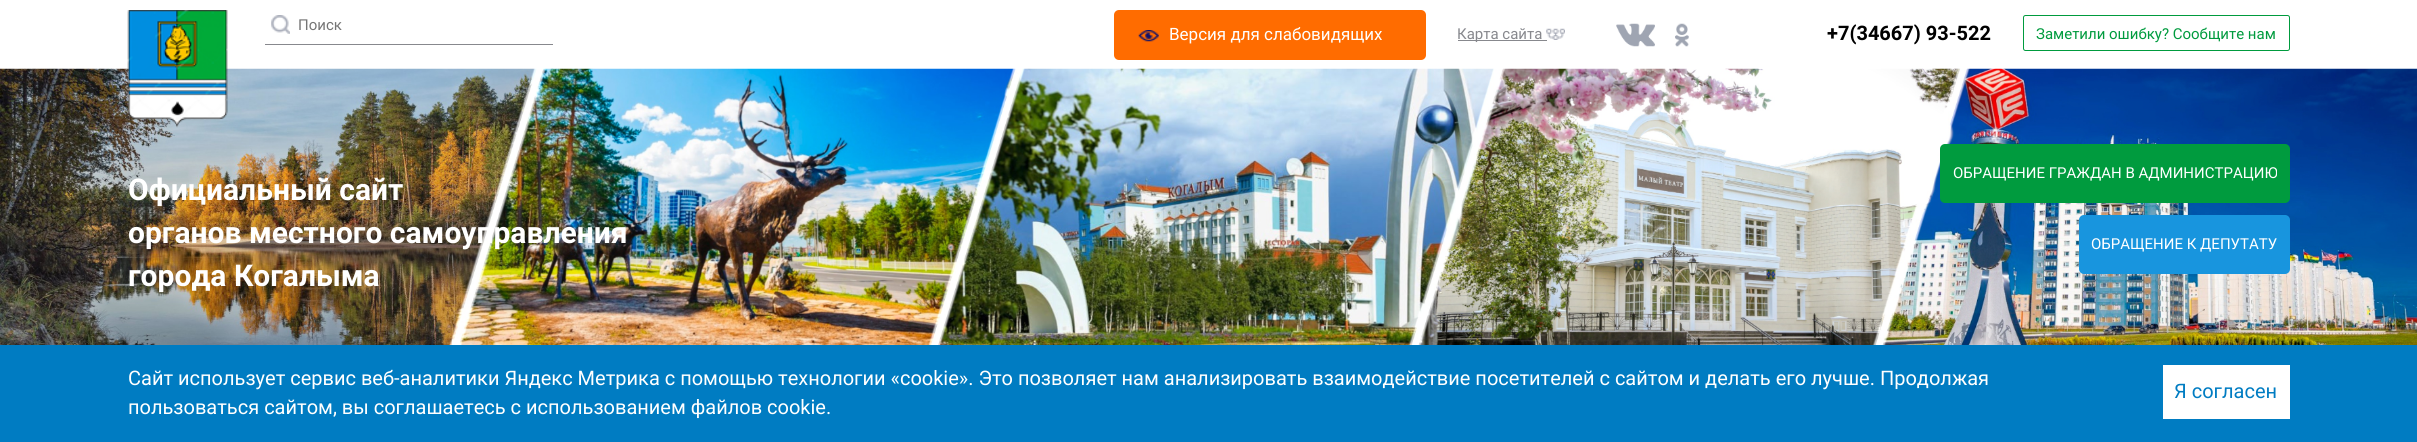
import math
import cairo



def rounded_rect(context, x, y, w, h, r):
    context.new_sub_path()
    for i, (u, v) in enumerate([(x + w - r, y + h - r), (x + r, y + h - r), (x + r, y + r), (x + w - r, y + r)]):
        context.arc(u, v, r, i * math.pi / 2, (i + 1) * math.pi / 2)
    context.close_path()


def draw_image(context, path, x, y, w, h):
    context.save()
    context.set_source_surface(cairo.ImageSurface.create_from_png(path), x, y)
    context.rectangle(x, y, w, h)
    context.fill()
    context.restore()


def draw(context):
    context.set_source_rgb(1, 1, 1)
    context.paint()
    draw_image(context, "images/7.png", 0, 68, 2417, 277)
    draw_image(context, "images/1.png", 127, 10, 101, 118)
    context.set_source_rgb(135 / 255, 136 / 255, 141 / 255)
    context.rectangle(265, 44, 288, 1)
    context.fill()
    draw_image(context, "images/2.png", 271, 15, 19, 19)
    context.set_source_rgb(1, 108 / 255, 0)
    rounded_rect(context, 1114, 10, 312, 50, 5)
    context.fill()
    draw_image(context, "images/3.png", 1138, 30, 21, 12)
    context.set_source_rgb(135 / 255, 136 / 255, 141 / 255)
    context.rectangle(1458, 40, 89, 1)
    context.fill()
    draw_image(context, "images/4.png", 1546, 28, 19, 12)
    draw_image(context, "images/5.png", 1616, 23, 39, 24)
    draw_image(context, "images/6.png", 1675, 23, 14, 24)
    rounded_rect(context, 2023.5, 15.5, 266, 35, 2)
    context.set_source_rgb(0, 155 / 255, 62 / 255)
    context.set_line_width(1)
    context.stroke()
    rounded_rect(context, 1940, 144, 350, 59, 5)
    context.fill()
    context.set_source_rgb(24 / 255, 149 / 255, 222 / 255)
    rounded_rect(context, 2079, 215, 211, 59, 5)
    context.fill()
    context.set_source_rgb(0, 124 / 255, 194 / 255)
    context.rectangle(0, 345, 2417, 97)
    context.fill()
    context.set_source_rgb(1, 1, 1)
    context.rectangle(2163, 365, 127, 54)
    context.fill()
    context.select_font_face("Roboto")
    context.set_font_size(15)
    context.set_source_rgb(117 / 255, 117 / 255, 117 / 255)
    context.move_to(298, 30)
    context.show_text("Поиск")
    context.set_font_size(17)
    context.set_source_rgb(1, 1, 1)
    context.move_to(1169, 40)
    context.show_text("Версия для слабовидящих")
    context.set_font_size(15)
    context.set_source_rgb(135 / 255, 136 / 255, 141 / 255)
    context.move_to(1457, 39)
    context.show_text("Карта сайта")
    context.select_font_face("Roboto", cairo.FontSlant.NORMAL, cairo.FontWeight.BOLD)
    context.set_font_size(20)
    context.set_source_rgb(0, 0, 0)
    context.move_to(1827, 40)
    context.show_text("+7(34667) 93-522")
    context.select_font_face("Roboto")
    context.set_font_size(15)
    context.set_source_rgb(0, 155 / 255, 62 / 255)
    context.move_to(2036, 39)
    context.show_text("Заметили ошибку? Сообщите нам")
    context.select_font_face("Roboto", cairo.FontSlant.NORMAL, cairo.FontWeight.BOLD)
    context.set_font_size(30)
    context.set_source_rgb(1, 1, 1)
    context.move_to(128, 200)
    context.show_text("Официальный сайт")
    context.move_to(128, 243)
    context.show_text("органов местного самоуправления")
    context.move_to(128, 286)
    context.show_text("города Когалыма")
    context.select_font_face("Roboto")
    context.set_font_size(15)
    context.move_to(1953, 178)
    context.show_text("ОБРАЩЕНИЕ ГРАЖДАН В АДМИНИСТРАЦИЮ")
    context.move_to(2091, 249)
    context.show_text("ОБРАЩЕНИЕ К ДЕПУТАТУ")
    context.set_font_size(20)
    context.move_to(128, 385)
    context.show_text("Сайт использует сервис веб-аналитики Яндекс Метрика с помощью технологии «cookie». Это позволяет нам анализировать взаимодействие посетителей с сайтом и делать его лучше. Продолжая")
    context.move_to(128, 414)
    context.show_text("пользоваться сайтом, вы соглашаетесь с использованием файлов cookie.")
    context.set_source_rgb(0, 124 / 255, 194 / 255)
    context.move_to(2174, 398)
    context.show_text("Я согласен")


surface = cairo.ImageSurface(cairo.Format.RGB24, 2417, 442)
context = cairo.Context(surface)
options = cairo.FontOptions()
options.set_hint_metrics(cairo.HintMetrics.OFF)
options.set_hint_style(cairo.HintStyle.NONE)
context.set_font_options(options)
context.set_miter_limit(4)
draw(context)
surface.write_to_png("out.png")
